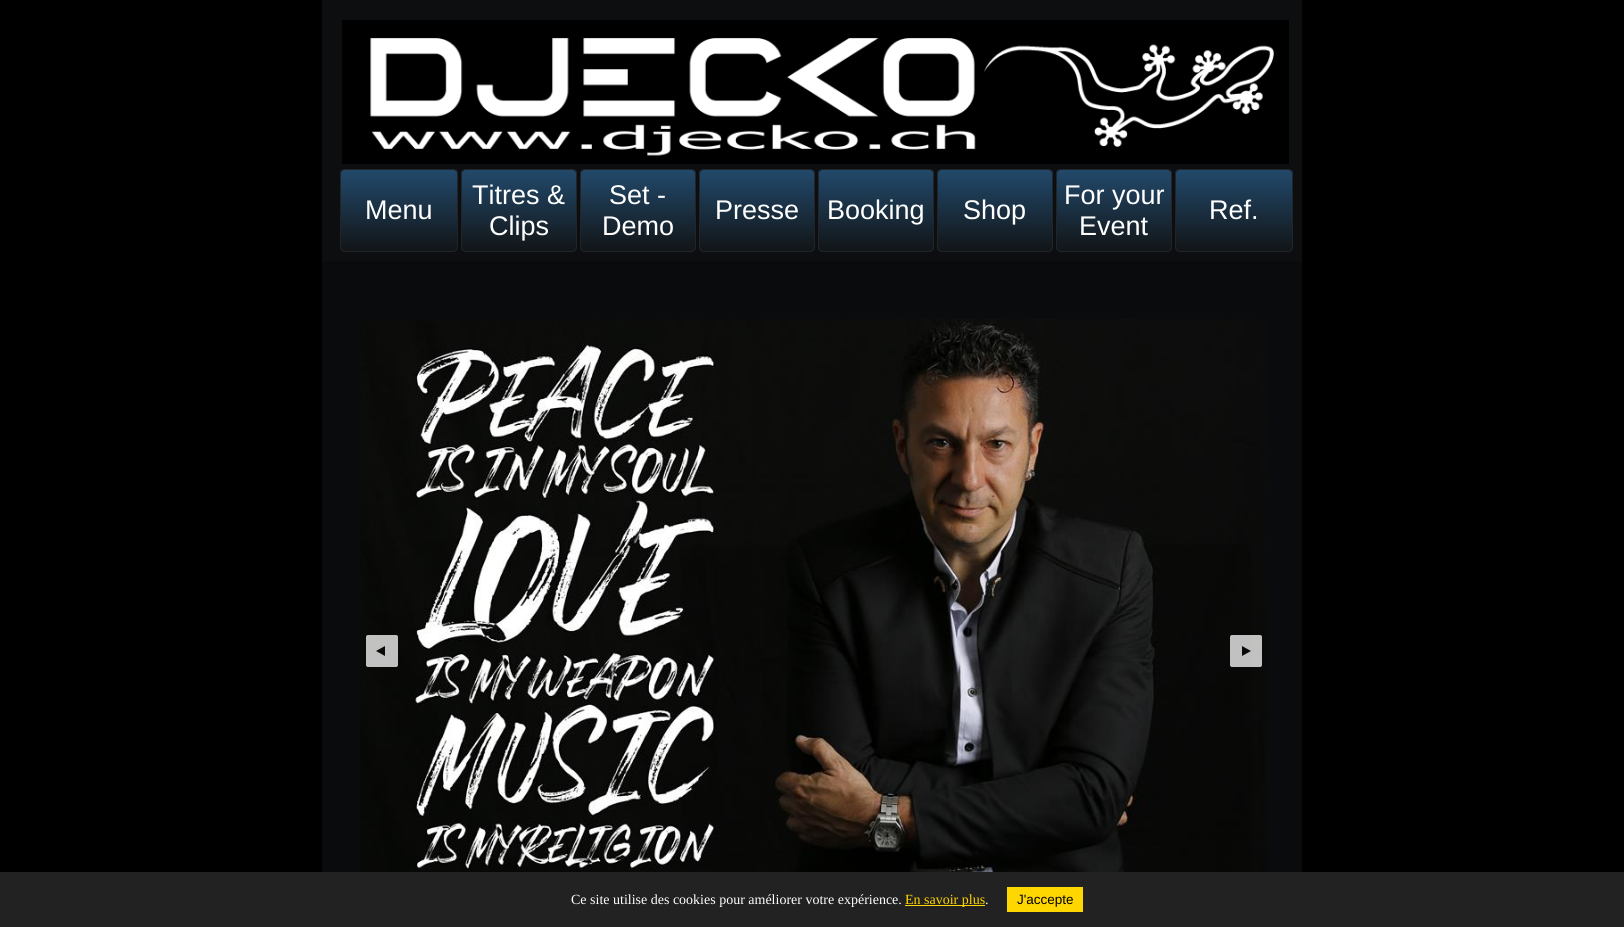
import math
import cairo



def rounded_rect(context, x, y, w, h, r):
    context.new_sub_path()
    for i, (u, v) in enumerate([(x + w - r, y + h - r), (x + r, y + h - r), (x + r, y + r), (x + w - r, y + r)]):
        context.arc(u, v, r, i * math.pi / 2, (i + 1) * math.pi / 2)
    context.close_path()


def draw_image(context, path, x, y, w, h):
    context.save()
    context.set_source_surface(cairo.ImageSurface.create_from_png(path), x, y)
    context.rectangle(x, y, w, h)
    context.fill()
    context.restore()


def draw(context):
    context.set_source_rgb(0, 0, 0)
    context.paint()
    context.set_source_rgb(12 / 255, 14 / 255, 15 / 255)
    context.rectangle(322, 0, 980, 261)
    context.fill()
    draw_image(context, "images/1.png", 342, 20, 947, 144)
    context.save()
    rounded_rect(context, 340, 169, 118, 83, 5)
    context.clip()
    gradient = cairo.LinearGradient(399, 170, 399, 251)
    gradient.add_color_stop_rgba(0, 34 / 255, 73 / 255, 107 / 255, 1)
    gradient.add_color_stop_rgba(1, 18 / 255, 21 / 255, 23 / 255, 1)
    context.set_source(gradient)
    context.rectangle(340, 170, 118, 81)
    context.fill()
    context.restore()
    rounded_rect(context, 340.5, 169.5, 117, 82, 4.5)
    context.set_source_rgb(33 / 255, 37 / 255, 42 / 255)
    context.set_line_width(1)
    context.stroke()
    context.save()
    rounded_rect(context, 461, 169, 116, 83, 5)
    context.clip()
    gradient = cairo.LinearGradient(519, 170, 519, 251)
    gradient.add_color_stop_rgba(0, 34 / 255, 73 / 255, 107 / 255, 1)
    gradient.add_color_stop_rgba(1, 18 / 255, 21 / 255, 23 / 255, 1)
    context.set_source(gradient)
    context.rectangle(461, 170, 116, 81)
    context.fill()
    context.restore()
    rounded_rect(context, 461.5, 169.5, 115, 82, 4.5)
    context.stroke()
    context.save()
    rounded_rect(context, 580, 169, 116, 83, 5)
    context.clip()
    gradient = cairo.LinearGradient(638, 170, 638, 251)
    gradient.add_color_stop_rgba(0, 34 / 255, 73 / 255, 107 / 255, 1)
    gradient.add_color_stop_rgba(1, 18 / 255, 21 / 255, 23 / 255, 1)
    context.set_source(gradient)
    context.rectangle(580, 170, 116, 81)
    context.fill()
    context.restore()
    rounded_rect(context, 580.5, 169.5, 115, 82, 4.5)
    context.stroke()
    context.save()
    rounded_rect(context, 699, 169, 116, 83, 5)
    context.clip()
    gradient = cairo.LinearGradient(757, 170, 757, 251)
    gradient.add_color_stop_rgba(0, 34 / 255, 73 / 255, 107 / 255, 1)
    gradient.add_color_stop_rgba(1, 18 / 255, 21 / 255, 23 / 255, 1)
    context.set_source(gradient)
    context.rectangle(699, 170, 116, 81)
    context.fill()
    context.restore()
    rounded_rect(context, 699.5, 169.5, 115, 82, 4.5)
    context.stroke()
    context.save()
    rounded_rect(context, 818, 169, 116, 83, 5)
    context.clip()
    gradient = cairo.LinearGradient(876, 170, 876, 251)
    gradient.add_color_stop_rgba(0, 34 / 255, 73 / 255, 107 / 255, 1)
    gradient.add_color_stop_rgba(1, 18 / 255, 21 / 255, 23 / 255, 1)
    context.set_source(gradient)
    context.rectangle(818, 170, 116, 81)
    context.fill()
    context.restore()
    rounded_rect(context, 818.5, 169.5, 115, 82, 4.5)
    context.stroke()
    context.save()
    rounded_rect(context, 937, 169, 116, 83, 5)
    context.clip()
    gradient = cairo.LinearGradient(995, 170, 995, 251)
    gradient.add_color_stop_rgba(0, 34 / 255, 73 / 255, 107 / 255, 1)
    gradient.add_color_stop_rgba(1, 18 / 255, 21 / 255, 23 / 255, 1)
    context.set_source(gradient)
    context.rectangle(937, 170, 116, 81)
    context.fill()
    context.restore()
    rounded_rect(context, 937.5, 169.5, 115, 82, 4.5)
    context.stroke()
    context.save()
    rounded_rect(context, 1056, 169, 116, 83, 5)
    context.clip()
    gradient = cairo.LinearGradient(1114, 170, 1114, 251)
    gradient.add_color_stop_rgba(0, 34 / 255, 73 / 255, 107 / 255, 1)
    gradient.add_color_stop_rgba(1, 18 / 255, 21 / 255, 23 / 255, 1)
    context.set_source(gradient)
    context.rectangle(1056, 170, 116, 81)
    context.fill()
    context.restore()
    rounded_rect(context, 1056.5, 169.5, 115, 82, 4.5)
    context.stroke()
    context.save()
    rounded_rect(context, 1175, 169, 118, 83, 5)
    context.clip()
    gradient = cairo.LinearGradient(1234, 170, 1234, 251)
    gradient.add_color_stop_rgba(0, 34 / 255, 73 / 255, 107 / 255, 1)
    gradient.add_color_stop_rgba(1, 18 / 255, 21 / 255, 23 / 255, 1)
    context.set_source(gradient)
    context.rectangle(1175, 170, 118, 81)
    context.fill()
    context.restore()
    rounded_rect(context, 1175.5, 169.5, 117, 82, 4.5)
    context.stroke()
    context.set_source_rgb(10 / 255, 11 / 255, 12 / 255)
    context.rectangle(322, 261, 980, 611)
    context.fill()
    draw_image(context, "images/2.png", 360, 319, 908, 553)
    context.set_source_rgba(1, 1, 1, 0.75)
    rounded_rect(context, 366, 635, 32, 32, 2)
    context.fill()
    draw_image(context, "images/3.png", 376, 646, 9, 10)
    rounded_rect(context, 1230, 635, 32, 32, 2)
    context.fill()
    draw_image(context, "images/4.png", 1242, 646, 9, 10)
    context.set_source_rgb(34 / 255, 34 / 255, 34 / 255)
    context.rectangle(0, 872, 1624, 55)
    context.fill()
    context.set_source_rgb(1, 215 / 255, 0)
    context.rectangle(905, 905, 80, 1)
    context.fill()
    context.rectangle(1007, 887, 76, 25)
    context.fill()
    context.select_font_face("Liberation Sans")
    context.set_font_size(27)
    context.set_source_rgb(1, 1, 1)
    context.move_to(365, 219)
    context.show_text("Menu")
    context.move_to(472, 204)
    context.show_text("Titres &")
    context.move_to(489, 235)
    context.show_text("Clips")
    context.move_to(609, 204)
    context.show_text("Set -")
    context.move_to(602, 235)
    context.show_text("Demo")
    context.move_to(715, 219)
    context.show_text("Presse")
    context.move_to(827, 219)
    context.show_text("Booking")
    context.move_to(963, 219)
    context.show_text("Shop")
    context.move_to(1064, 204)
    context.show_text("For your")
    context.move_to(1079, 235)
    context.show_text("Event")
    context.move_to(1209, 219)
    context.show_text("Ref.")
    context.select_font_face("Liberation Serif")
    context.set_font_size(14)
    context.move_to(571, 904)
    context.show_text("Ce site utilise des cookies pour améliorer votre expérience.")
    context.set_source_rgb(1, 215 / 255, 0)
    context.move_to(905, 904)
    context.show_text("En savoir plus")
    context.set_source_rgb(1, 1, 1)
    context.move_to(985, 904)
    context.show_text(".")
    context.select_font_face("Liberation Sans")
    context.set_font_size(13.5)
    context.set_source_rgb(0, 0, 0)
    context.move_to(1017, 904)
    context.show_text("J'accepte")


surface = cairo.ImageSurface(cairo.Format.RGB24, 1624, 927)
context = cairo.Context(surface)
options = cairo.FontOptions()
options.set_hint_metrics(cairo.HintMetrics.OFF)
options.set_hint_style(cairo.HintStyle.NONE)
context.set_font_options(options)
context.set_miter_limit(4)
draw(context)
surface.write_to_png("out.png")
